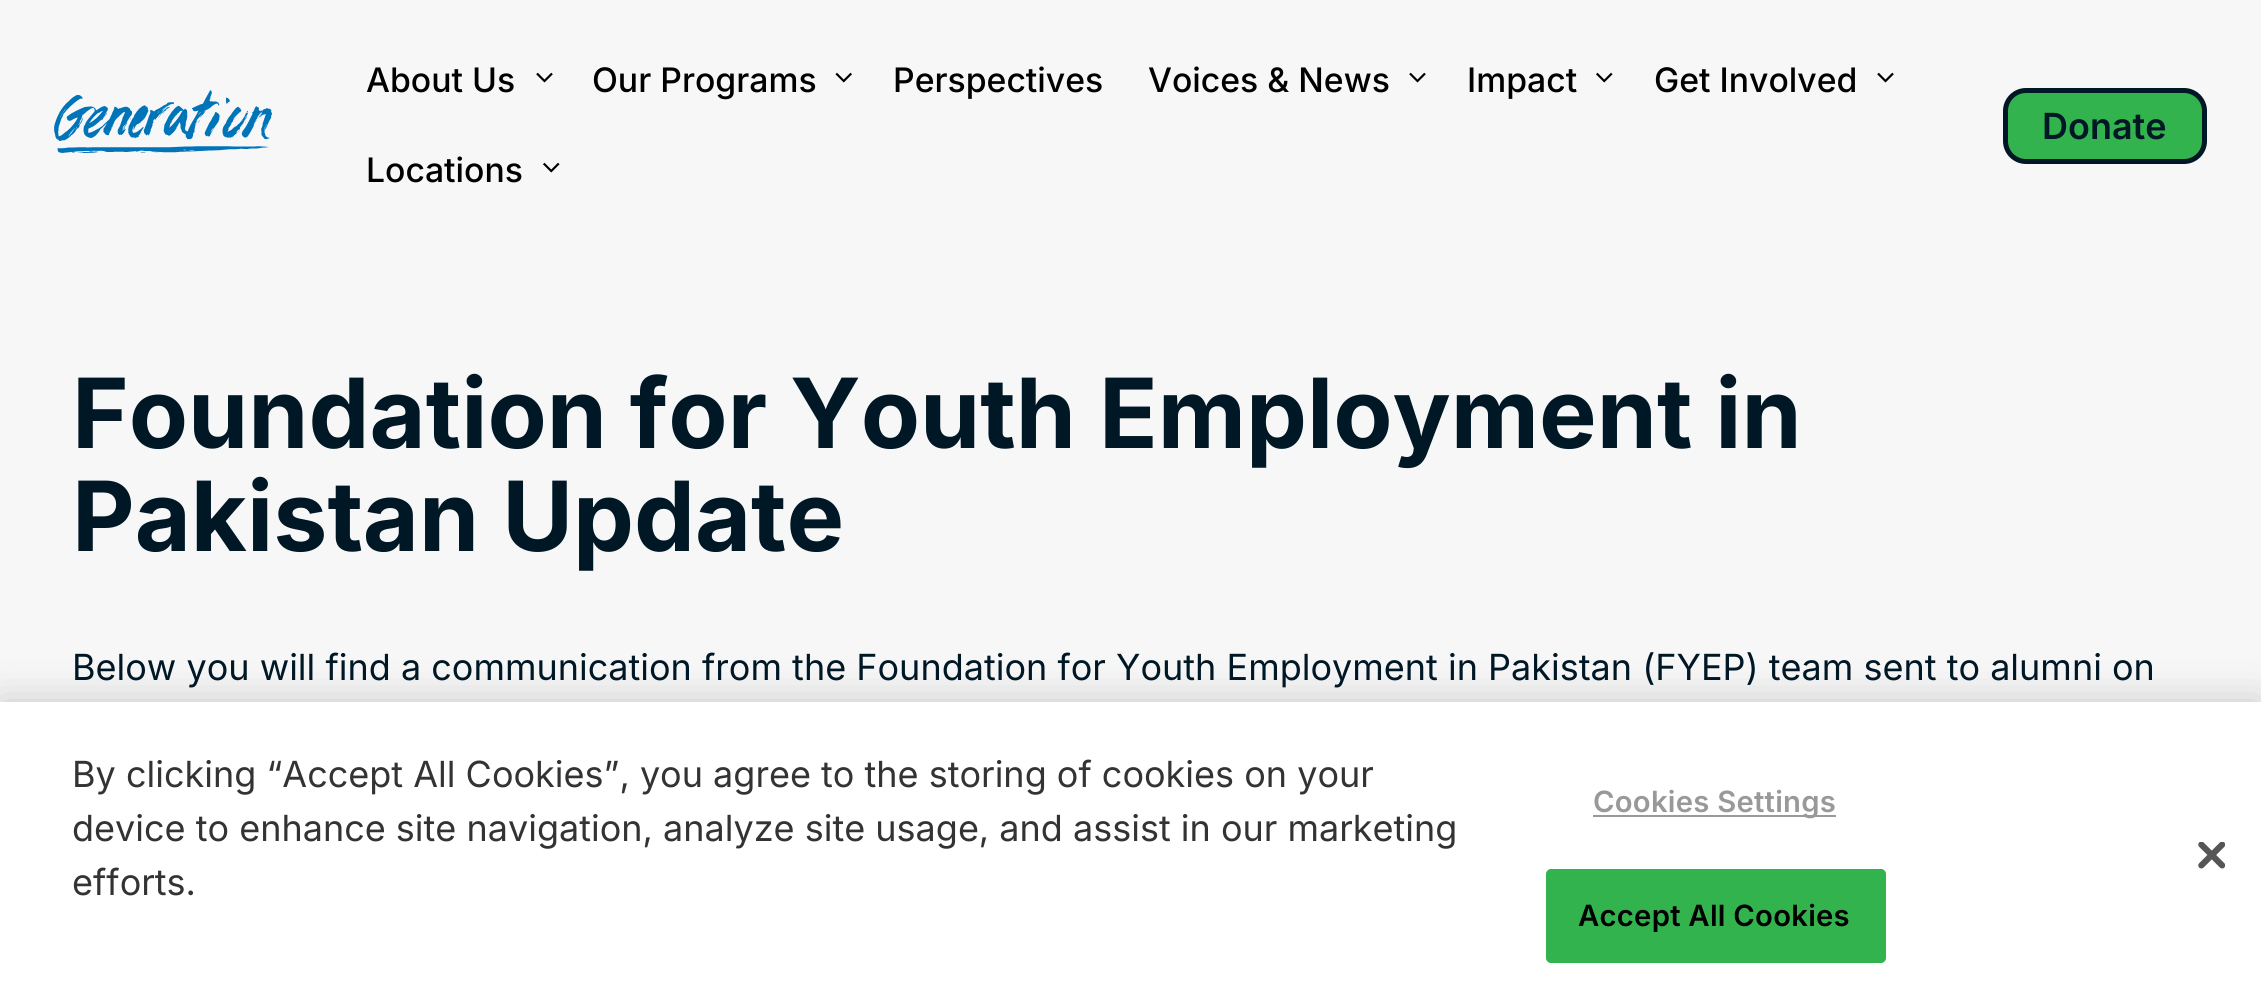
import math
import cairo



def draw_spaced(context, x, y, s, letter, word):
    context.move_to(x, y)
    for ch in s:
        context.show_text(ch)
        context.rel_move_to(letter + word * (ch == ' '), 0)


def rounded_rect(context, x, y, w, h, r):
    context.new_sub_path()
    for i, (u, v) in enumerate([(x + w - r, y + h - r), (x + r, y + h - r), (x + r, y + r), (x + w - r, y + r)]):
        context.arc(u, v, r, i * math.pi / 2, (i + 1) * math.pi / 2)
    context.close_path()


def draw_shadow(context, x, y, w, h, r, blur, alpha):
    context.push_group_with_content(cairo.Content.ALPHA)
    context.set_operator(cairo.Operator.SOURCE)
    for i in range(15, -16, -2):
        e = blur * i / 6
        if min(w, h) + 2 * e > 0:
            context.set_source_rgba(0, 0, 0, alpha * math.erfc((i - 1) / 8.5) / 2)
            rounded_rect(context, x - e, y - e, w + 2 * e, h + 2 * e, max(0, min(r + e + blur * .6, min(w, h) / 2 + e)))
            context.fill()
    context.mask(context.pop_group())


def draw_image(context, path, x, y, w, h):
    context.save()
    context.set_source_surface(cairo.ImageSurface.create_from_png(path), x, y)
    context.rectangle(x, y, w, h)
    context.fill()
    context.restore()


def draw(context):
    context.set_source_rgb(247 / 255, 247 / 255, 248 / 255)
    context.paint()
    draw_image(context, "images/1.png", 54, 90, 218, 63)
    draw_image(context, "images/2.png", 536, 72, 17, 11)
    draw_image(context, "images/3.png", 835, 72, 17, 11)
    draw_image(context, "images/2.png", 1409, 72, 17, 11)
    draw_image(context, "images/4.png", 1596, 72, 17, 11)
    draw_image(context, "images/2.png", 1877, 72, 17, 11)
    draw_image(context, "images/4.png", 543, 162, 17, 11)
    context.set_source_rgb(50 / 255, 179 / 255, 77 / 255)
    rounded_rect(context, 2005.5, 90.5, 199, 71, 20.5)
    context.fill_preserve()
    context.set_source_rgb(0, 23 / 255, 37 / 255)
    context.set_line_width(5)
    context.stroke()
    context.set_source_rgb(0, 0, 0)
    draw_shadow(context, 0, 702, 2261, 306, 0, 20, 0.2)
    context.set_source_rgb(1, 1, 1)
    context.rectangle(0, 702, 2261, 306)
    context.fill()
    context.set_source_rgb(153 / 255, 153 / 255, 153 / 255)
    context.rectangle(1593, 815, 243, 2)
    context.fill()
    context.set_source_rgb(50 / 255, 179 / 255, 77 / 255)
    rounded_rect(context, 1547, 870, 338, 92, 4)
    context.fill_preserve()
    context.set_line_width(2)
    context.stroke()
    draw_image(context, "images/5.png", 2198, 842, 27, 27)
    context.select_font_face("Inter Medium")
    context.set_font_size(33.75)
    context.set_source_rgb(0, 0, 0)
    context.move_to(366, 92)
    context.show_text("About Us")
    context.move_to(592, 92)
    context.show_text("Our Programs")
    context.move_to(893, 92)
    context.show_text("Perspectives")
    context.move_to(1148, 92)
    context.show_text("Voices & News")
    context.move_to(1467, 92)
    context.show_text("Impact")
    context.move_to(1654, 92)
    context.show_text("Get Involved")
    context.move_to(366, 182)
    context.show_text("Locations")
    context.select_font_face("Inter SemiBold")
    context.set_font_size(36)
    context.set_source_rgb(0, 23 / 255, 37 / 255)
    context.move_to(2042, 139)
    context.show_text("Donate")
    context.select_font_face("Inter", cairo.FontSlant.NORMAL, cairo.FontWeight.BOLD)
    context.set_font_size(96.75)
    context.move_to(72, 448)
    context.show_text("Foundation for Youth Employment in")
    context.move_to(72, 551)
    context.show_text("Pakistan Update")
    context.select_font_face("Inter")
    context.set_font_size(36)
    context.move_to(72, 680)
    context.show_text("Below you will find a communication from the Foundation for Youth Employment in Pakistan (FYEP) team sent to alumni on")
    context.set_source_rgb(51 / 255, 51 / 255, 51 / 255)
    context.move_to(72, 787)
    context.show_text("By clicking “Accept All Cookies”, you agree to the storing of cookies on your")
    context.move_to(72, 841)
    context.show_text("device to enhance site navigation, analyze site usage, and assist in our marketing")
    context.move_to(72, 895)
    context.show_text("efforts.")
    context.select_font_face("Inter SemiBold")
    context.set_font_size(29.25)
    context.set_source_rgb(153 / 255, 153 / 255, 153 / 255)
    draw_spaced(context, 1593, 812, "Cookies Settings", 0.25, 0)
    context.set_source_rgb(0, 0, 0)
    draw_spaced(context, 1578, 926, "Accept All Cookies", 0.25, 0)


surface = cairo.ImageSurface(cairo.Format.RGB24, 2261, 1008)
context = cairo.Context(surface)
options = cairo.FontOptions()
options.set_hint_metrics(cairo.HintMetrics.OFF)
options.set_hint_style(cairo.HintStyle.NONE)
context.set_font_options(options)
context.set_miter_limit(4)
draw(context)
surface.write_to_png("out.png")
